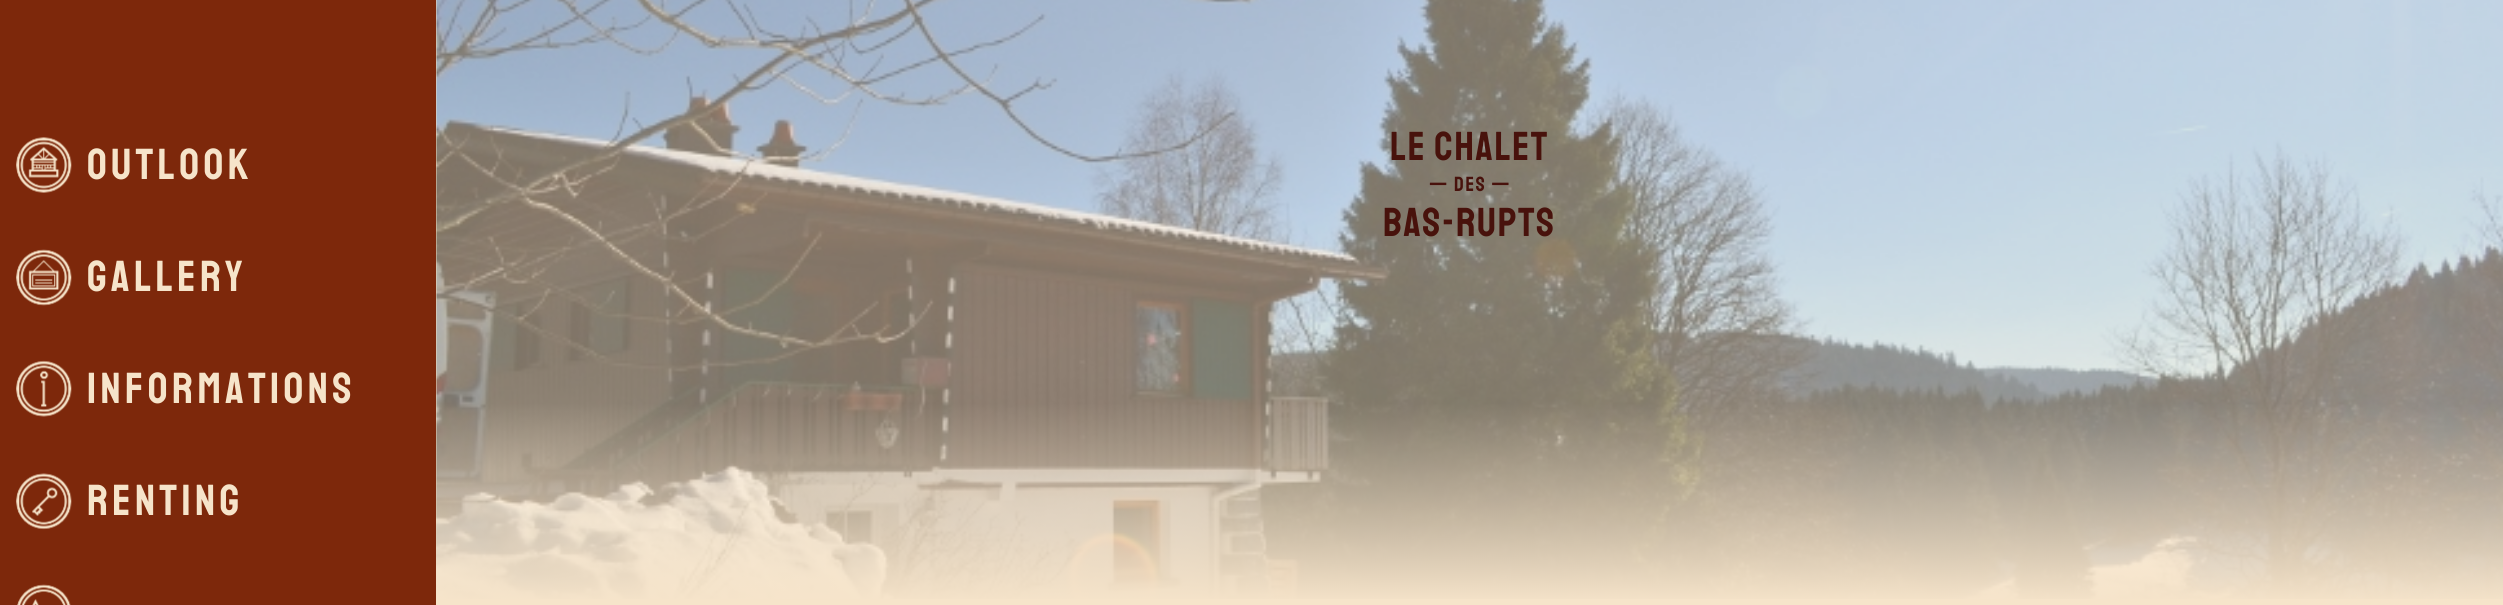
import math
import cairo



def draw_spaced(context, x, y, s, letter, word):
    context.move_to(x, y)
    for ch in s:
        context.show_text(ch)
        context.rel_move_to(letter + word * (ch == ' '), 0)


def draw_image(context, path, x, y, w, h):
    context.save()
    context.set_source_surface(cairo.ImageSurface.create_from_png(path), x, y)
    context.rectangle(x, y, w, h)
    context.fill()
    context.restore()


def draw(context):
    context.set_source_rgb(246 / 255, 228 / 255, 202 / 255)
    context.paint()
    context.set_source_rgb(125 / 255, 40 / 255, 11 / 255)
    context.rectangle(0, 0, 436, 605)
    context.fill()
    draw_image(context, "images/1.png", 16, 137, 56, 56)
    draw_image(context, "images/2.png", 16, 249, 56, 57)
    draw_image(context, "images/3.png", 16, 360, 56, 57)
    draw_image(context, "images/4.png", 16, 473, 56, 57)
    draw_image(context, "images/5.png", 17, 584, 54, 21)
    draw_image(context, "images/6.png", 436, 0, 2067, 599)
    context.select_font_face("Staatliches")
    context.set_font_size(43.5)
    context.set_source_rgb(246 / 255, 228 / 255, 202 / 255)
    draw_spaced(context, 87, 179, "OUTLOOK", 4.4, 0)
    draw_spaced(context, 87, 291, "GALLERY", 4.4, 0)
    draw_spaced(context, 87, 403, "INFORMATIONS", 4.4, 0)
    draw_spaced(context, 87, 515, "RENTING", 4.4, 0)
    context.set_font_size(40.5)
    context.set_source_rgb(72 / 255, 18 / 255, 12 / 255)
    draw_spaced(context, 1390, 160, "Le chalet", 1.75, 0)
    context.set_font_size(20.5)
    draw_spaced(context, 1429, 191, "— des —", 1.75, 0)
    context.set_font_size(40.5)
    draw_spaced(context, 1383, 236, "Bas-Rupts", 1.75, 0)


surface = cairo.ImageSurface(cairo.Format.RGB24, 2503, 605)
context = cairo.Context(surface)
options = cairo.FontOptions()
options.set_hint_metrics(cairo.HintMetrics.OFF)
options.set_hint_style(cairo.HintStyle.NONE)
context.set_font_options(options)
context.set_miter_limit(4)
draw(context)
surface.write_to_png("out.png")
